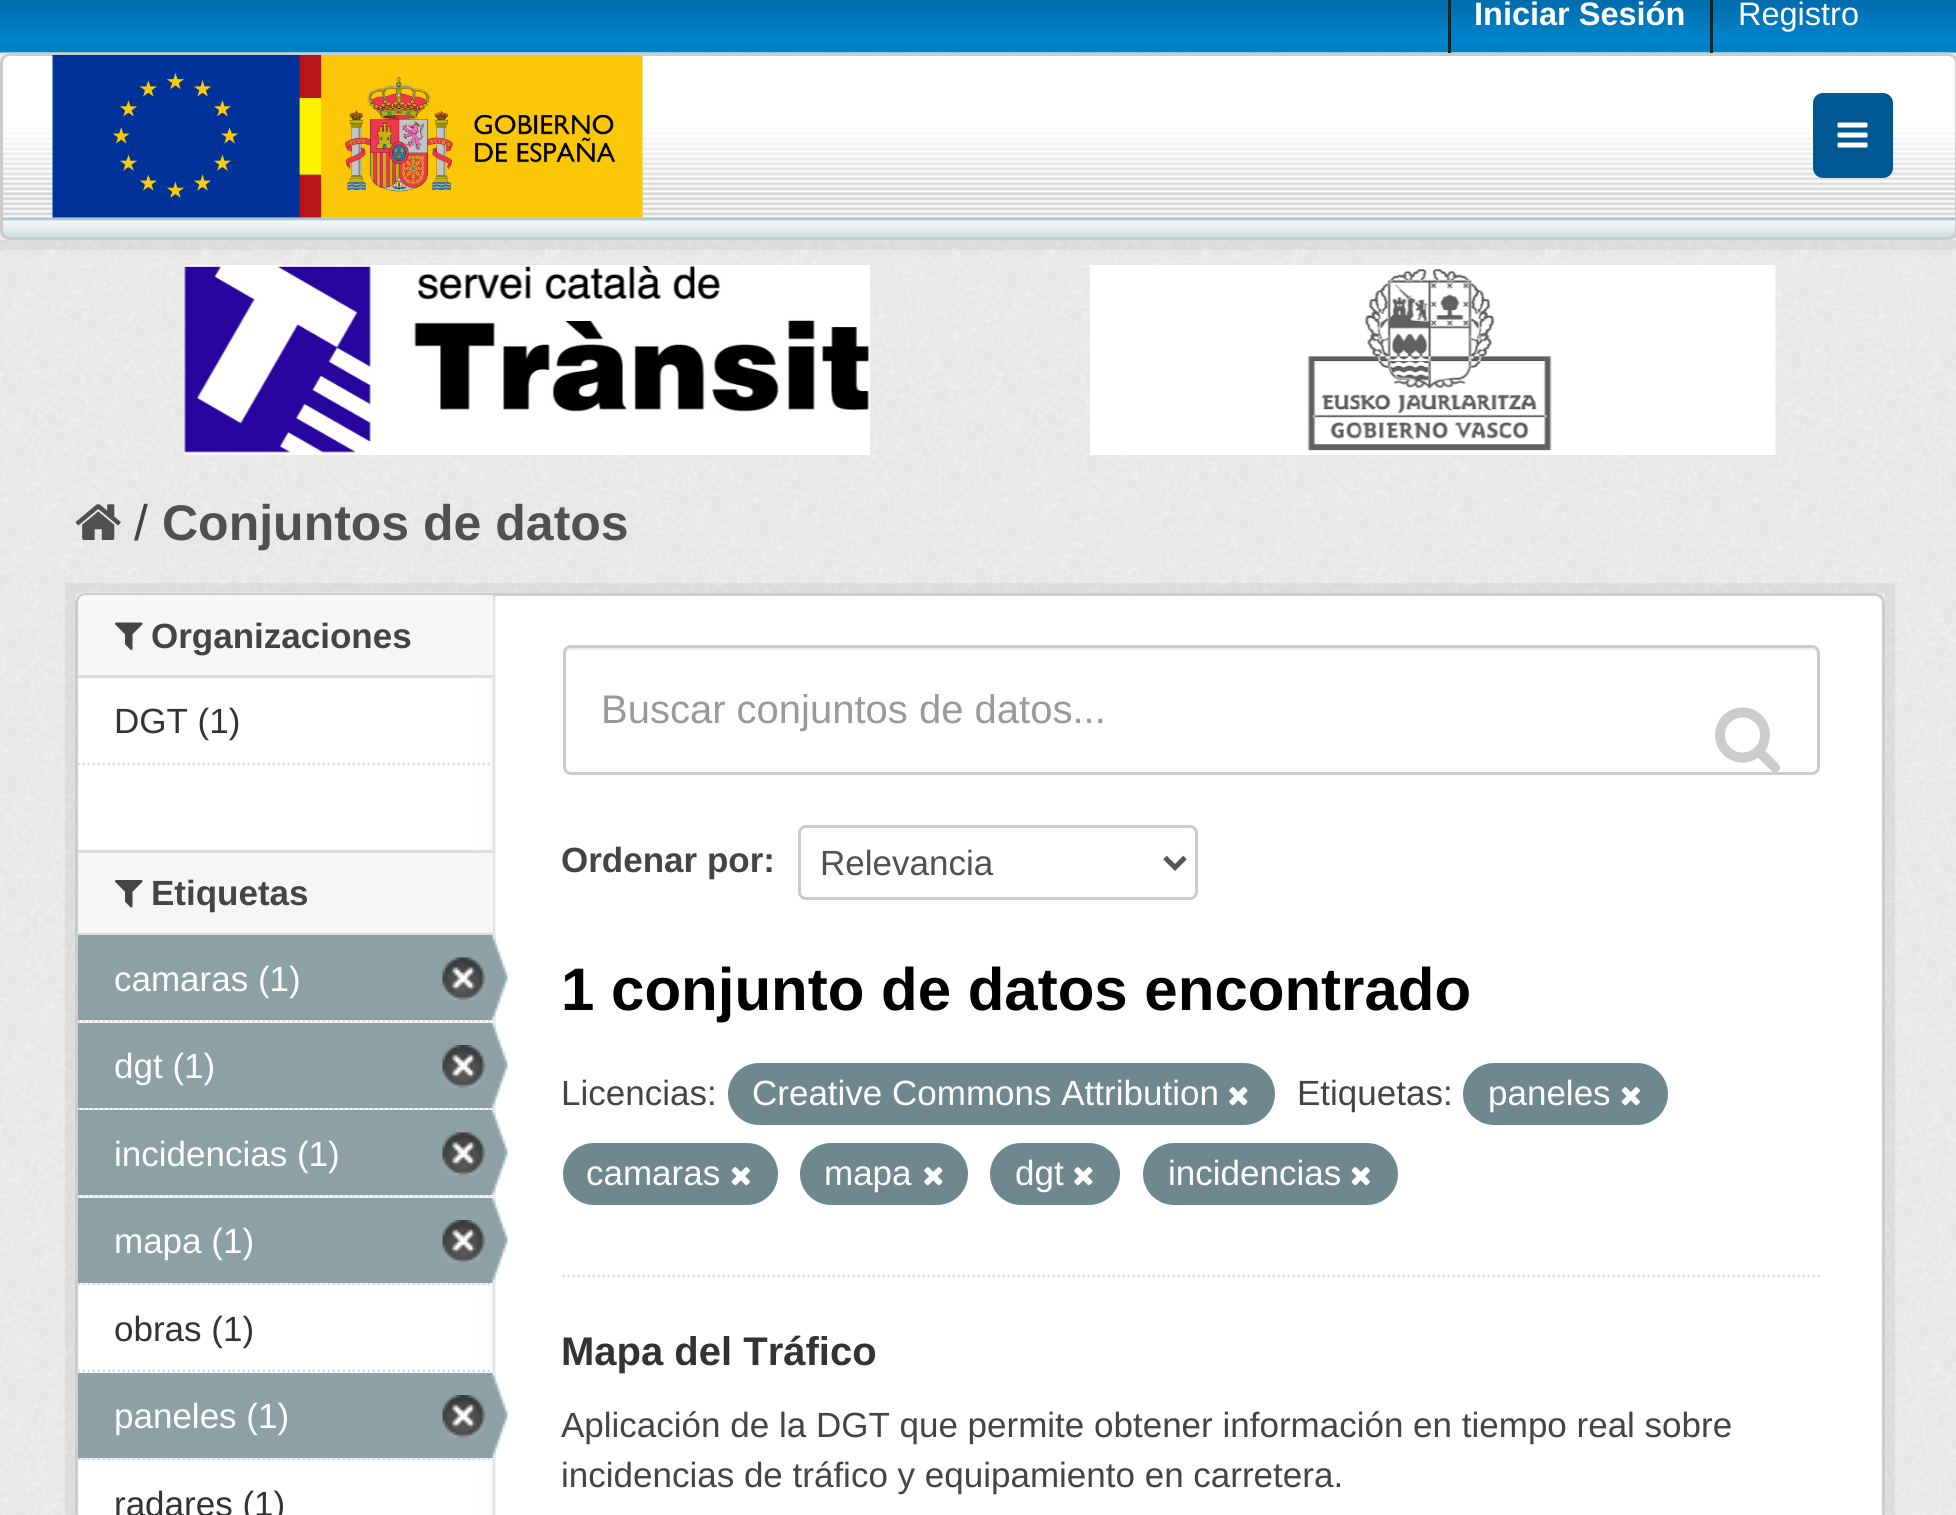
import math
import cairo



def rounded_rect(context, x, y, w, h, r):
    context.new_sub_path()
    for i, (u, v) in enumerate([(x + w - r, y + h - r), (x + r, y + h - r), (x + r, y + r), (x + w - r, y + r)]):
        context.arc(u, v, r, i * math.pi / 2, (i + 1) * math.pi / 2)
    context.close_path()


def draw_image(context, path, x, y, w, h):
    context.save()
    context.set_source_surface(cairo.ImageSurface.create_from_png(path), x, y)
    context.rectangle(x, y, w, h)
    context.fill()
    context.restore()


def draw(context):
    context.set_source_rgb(238 / 255, 238 / 255, 238 / 255)
    context.paint()
    draw_image(context, "images/1.png", 0, 52, 1956, 426)
    draw_image(context, "images/2.png", 0, 0, 1956, 53)
    context.rectangle(-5, 48, 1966, 197)
    context.set_source_rgba(0, 0, 0, 0.05)
    context.set_line_width(10)
    context.stroke()
    draw_image(context, "images/3.png", 0, 52, 1956, 186)
    context.set_source_rgb(0, 35 / 255, 46 / 255)
    context.rectangle(1448, 0, 3, 53)
    context.fill()
    context.rectangle(1710, 0, 3, 53)
    context.fill()
    rounded_rect(context, 1.5, 54.5, 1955, 184, 8.5)
    context.set_source_rgb(204 / 255, 204 / 255, 204 / 255)
    context.set_line_width(3)
    context.stroke()
    draw_image(context, "images/4.png", 52, 55, 591, 163)
    context.set_source_rgb(0, 88 / 255, 146 / 255)
    rounded_rect(context, 1813, 93, 80, 85, 10)
    context.fill()
    draw_image(context, "images/5.png", 1837, 122, 31, 26)
    draw_image(context, "images/6.png", 184, 265, 687, 190)
    draw_image(context, "images/7.png", 1089, 265, 687, 190)
    draw_image(context, "images/8.png", 0, 478, 1956, 1037)
    draw_image(context, "images/9.png", 75, 504, 46, 36)
    context.rectangle(70, 588, 1820, 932)
    context.set_source_rgba(0, 0, 0, 0.05)
    context.set_line_width(10)
    context.stroke()
    context.set_source_rgb(1, 1, 1)
    rounded_rect(context, 75, 593, 1810, 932, 10)
    context.fill()
    draw_image(context, "images/10.png", 75, 592, 423, 923)
    rounded_rect(context, 76.5, 594.5, 1807, 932, 8.5)
    context.set_source_rgb(204 / 255, 204 / 255, 204 / 255)
    context.set_line_width(3)
    context.stroke()
    context.set_source_rgb(246 / 255, 246 / 255, 246 / 255)
    context.new_path()
    context.move_to(86, 595)
    context.line_to(493, 595)
    context.line_to(493, 678)
    context.line_to(78, 678)
    context.line_to(78, 603)
    context.curve_to(78, 598.5, 81.5, 595, 86, 595)
    context.close_path()
    context.fill()
    context.set_source_rgb(221 / 255, 221 / 255, 221 / 255)
    context.rectangle(78, 675, 415, 3)
    context.fill()
    draw_image(context, "images/11.png", 115, 622, 28, 28)
    context.new_path()
    context.move_to(77.5, 764)
    context.line_to(492.5, 764)
    context.set_line_width(2.5)
    context.set_dash([2.5, 2.5])
    context.stroke()
    context.set_source_rgb(246 / 255, 246 / 255, 246 / 255)
    context.rectangle(78, 853, 415, 80)
    context.fill()
    context.set_source_rgb(221 / 255, 221 / 255, 221 / 255)
    context.rectangle(78, 850, 415, 3)
    context.fill()
    context.rectangle(78, 933, 415, 2)
    context.fill()
    draw_image(context, "images/12.png", 115, 880, 28, 28)
    context.set_source_rgb(246 / 255, 246 / 255, 246 / 255)
    context.rectangle(78, 1020, 415, 3)
    context.fill()
    context.new_path()
    context.move_to(77.5, 1021)
    context.line_to(492.5, 1021)
    context.set_source_rgb(221 / 255, 221 / 255, 221 / 255)
    context.stroke()
    context.set_source_rgb(140 / 255, 160 / 255, 166 / 255)
    context.rectangle(78, 935, 415, 85)
    context.fill()
    draw_image(context, "images/13.png", 442, 957, 43, 43)
    draw_image(context, "images/14.png", 492, 935, 16, 85)
    context.set_source_rgb(246 / 255, 246 / 255, 246 / 255)
    context.rectangle(80, 1108, 413, 2)
    context.fill()
    context.new_path()
    context.move_to(77.5, 1109)
    context.line_to(492.5, 1109)
    context.set_source_rgb(221 / 255, 221 / 255, 221 / 255)
    context.stroke()
    context.set_source_rgb(140 / 255, 160 / 255, 166 / 255)
    context.rectangle(78, 1023, 415, 85)
    context.fill()
    draw_image(context, "images/15.png", 442, 1045, 43, 43)
    draw_image(context, "images/16.png", 492, 1022, 16, 86)
    context.set_source_rgb(246 / 255, 246 / 255, 246 / 255)
    context.rectangle(78, 1195, 415, 3)
    context.fill()
    context.new_path()
    context.move_to(77.5, 1196)
    context.line_to(492.5, 1196)
    context.set_source_rgb(221 / 255, 221 / 255, 221 / 255)
    context.stroke()
    context.set_source_rgb(140 / 255, 160 / 255, 166 / 255)
    context.rectangle(78, 1110, 415, 85)
    context.fill()
    draw_image(context, "images/17.png", 442, 1132, 43, 43)
    draw_image(context, "images/18.png", 492, 1110, 16, 85)
    context.set_source_rgb(246 / 255, 246 / 255, 246 / 255)
    context.rectangle(80, 1283, 413, 2)
    context.fill()
    context.new_path()
    context.move_to(77.5, 1284)
    context.line_to(492.5, 1284)
    context.set_source_rgb(221 / 255, 221 / 255, 221 / 255)
    context.stroke()
    context.set_source_rgb(140 / 255, 160 / 255, 166 / 255)
    context.rectangle(78, 1198, 415, 85)
    context.fill()
    draw_image(context, "images/15.png", 442, 1220, 43, 43)
    draw_image(context, "images/16.png", 492, 1197, 16, 86)
    context.new_path()
    context.move_to(77.5, 1371)
    context.line_to(492.5, 1371)
    context.set_source_rgb(221 / 255, 221 / 255, 221 / 255)
    context.stroke()
    context.set_source_rgb(246 / 255, 246 / 255, 246 / 255)
    context.rectangle(80, 1458, 413, 2)
    context.fill()
    context.new_path()
    context.move_to(77.5, 1459)
    context.line_to(492.5, 1459)
    context.set_source_rgb(221 / 255, 221 / 255, 221 / 255)
    context.stroke()
    context.set_source_rgb(140 / 255, 160 / 255, 166 / 255)
    context.rectangle(78, 1373, 415, 85)
    context.fill()
    draw_image(context, "images/15.png", 442, 1395, 43, 43)
    draw_image(context, "images/19.png", 492, 1372, 16, 86)
    context.new_path()
    context.move_to(562.5, 1276)
    context.line_to(1820, 1276)
    context.set_source_rgb(221 / 255, 221 / 255, 221 / 255)
    context.stroke()
    context.set_source_rgb(236 / 255, 236 / 255, 236 / 255)
    context.new_path()
    context.move_to(570, 650)
    context.line_to(1812, 650)
    context.curve_to(1815, 650, 1818, 652, 1818, 655)
    context.line_to(1818, 653)
    context.curve_to(1818, 650, 1816, 648, 1813, 648)
    context.line_to(570, 648)
    context.curve_to(567, 648, 565, 650, 565, 653)
    context.line_to(565, 655)
    context.curve_to(565, 652, 567, 650, 570, 650)
    context.close_path()
    context.fill()
    rounded_rect(context, 564.5, 646.5, 1254, 127, 6.5)
    context.set_source_rgb(204 / 255, 204 / 255, 204 / 255)
    context.set_line_width(3)
    context.set_dash([])
    context.stroke()
    draw_image(context, "images/20.png", 1715, 707, 65, 65)
    rounded_rect(context, 799.5, 826.5, 397, 72, 6.5)
    context.stroke()
    context.new_path()
    context.move_to(1165, 857.5)
    context.line_to(1175, 867.5)
    context.line_to(1185, 857.5)
    context.set_source_rgb(85 / 255, 85 / 255, 85 / 255)
    context.set_line_width(5)
    context.stroke()
    context.set_source_rgb(111 / 255, 136 / 255, 144 / 255)
    rounded_rect(context, 728, 1063, 547, 62, 31)
    context.fill()
    draw_image(context, "images/21.png", 1229, 1087, 19, 19)
    rounded_rect(context, 1463, 1063, 205, 62, 31)
    context.fill()
    draw_image(context, "images/22.png", 1621, 1087, 19, 19)
    rounded_rect(context, 563, 1143, 215, 62, 31)
    context.fill()
    draw_image(context, "images/22.png", 731, 1167, 19, 19)
    rounded_rect(context, 800, 1143, 168, 62, 31)
    context.fill()
    draw_image(context, "images/21.png", 924, 1167, 19, 19)
    rounded_rect(context, 990, 1143, 130, 62, 31)
    context.fill()
    draw_image(context, "images/21.png", 1074, 1167, 19, 19)
    rounded_rect(context, 1143, 1143, 255, 62, 31)
    context.fill()
    draw_image(context, "images/22.png", 1351, 1167, 19, 19)
    context.select_font_face("Liberation Sans", cairo.FontSlant.NORMAL, cairo.FontWeight.BOLD)
    context.set_font_size(32.5)
    context.set_source_rgb(1, 1, 1)
    context.move_to(1474, 25)
    context.show_text("Iniciar Sesión")
    context.select_font_face("Liberation Sans")
    context.move_to(1738, 25)
    context.show_text("Registro")
    context.set_font_size(50)
    context.set_source_rgb(68 / 255, 68 / 255, 68 / 255)
    context.move_to(134, 540)
    context.show_text("/")
    context.select_font_face("Liberation Sans", cairo.FontSlant.NORMAL, cairo.FontWeight.BOLD)
    context.set_source_rgb(80 / 255, 80 / 255, 80 / 255)
    context.move_to(162, 540)
    context.show_text("Conjuntos de datos")
    context.set_font_size(35)
    context.set_source_rgb(68 / 255, 68 / 255, 68 / 255)
    context.move_to(151, 648)
    context.show_text("Organizaciones")
    context.select_font_face("Liberation Sans")
    context.set_source_rgb(51 / 255, 51 / 255, 51 / 255)
    context.move_to(114, 733)
    context.show_text("DGT (1)")
    context.select_font_face("Liberation Sans", cairo.FontSlant.NORMAL, cairo.FontWeight.BOLD)
    context.set_source_rgb(68 / 255, 68 / 255, 68 / 255)
    context.move_to(151, 905)
    context.show_text("Etiquetas")
    context.select_font_face("Liberation Sans")
    context.set_source_rgb(1, 1, 1)
    context.move_to(114, 991)
    context.show_text("camaras (1)")
    context.move_to(114, 1078)
    context.show_text("dgt (1)")
    context.move_to(114, 1166)
    context.show_text("incidencias (1)")
    context.move_to(114, 1253)
    context.show_text("mapa (1)")
    context.set_source_rgb(51 / 255, 51 / 255, 51 / 255)
    context.move_to(114, 1341)
    context.show_text("obras (1)")
    context.set_source_rgb(1, 1, 1)
    context.move_to(114, 1428)
    context.show_text("paneles (1)")
    context.set_source_rgb(51 / 255, 51 / 255, 51 / 255)
    context.move_to(114, 1516)
    context.show_text("radares (1)")
    context.set_font_size(40)
    context.set_source_rgb(153 / 255, 153 / 255, 153 / 255)
    context.move_to(601, 723)
    context.show_text("Buscar conjuntos de datos...")
    context.select_font_face("Liberation Sans", cairo.FontSlant.NORMAL, cairo.FontWeight.BOLD)
    context.set_font_size(35)
    context.set_source_rgb(68 / 255, 68 / 255, 68 / 255)
    context.move_to(561, 872)
    context.show_text("Ordenar por:")
    context.select_font_face("Liberation Sans")
    context.set_source_rgb(80 / 255, 80 / 255, 80 / 255)
    context.move_to(820, 875)
    context.show_text("Relevancia")
    context.select_font_face("Liberation Sans", cairo.FontSlant.NORMAL, cairo.FontWeight.BOLD)
    context.set_font_size(60)
    context.set_source_rgb(0, 0, 0)
    context.move_to(561, 1010)
    context.show_text("1 conjunto de datos encontrado")
    context.select_font_face("Liberation Sans")
    context.set_font_size(35)
    context.set_source_rgb(68 / 255, 68 / 255, 68 / 255)
    context.move_to(561, 1105)
    context.show_text("Licencias:")
    context.set_source_rgb(1, 1, 1)
    context.move_to(752, 1105)
    context.show_text("Creative Commons Attribution")
    context.set_source_rgb(68 / 255, 68 / 255, 68 / 255)
    context.move_to(1297, 1105)
    context.show_text("Etiquetas:")
    context.set_source_rgb(1, 1, 1)
    context.move_to(1488, 1105)
    context.show_text("paneles")
    context.move_to(586, 1185)
    context.show_text("camaras")
    context.move_to(824, 1185)
    context.show_text("mapa")
    context.move_to(1015, 1185)
    context.show_text("dgt")
    context.move_to(1168, 1185)
    context.show_text("incidencias")
    context.select_font_face("Liberation Sans", cairo.FontSlant.NORMAL, cairo.FontWeight.BOLD)
    context.set_font_size(40)
    context.set_source_rgb(51 / 255, 51 / 255, 51 / 255)
    context.move_to(561, 1365)
    context.show_text("Mapa del Tráfico")
    context.select_font_face("Liberation Sans")
    context.set_font_size(35)
    context.set_source_rgb(68 / 255, 68 / 255, 68 / 255)
    context.move_to(561, 1437)
    context.show_text("Aplicación de la DGT que permite obtener información en tiempo real sobre")
    context.move_to(561, 1487)
    context.show_text("incidencias de tráfico y equipamiento en carretera.")


surface = cairo.ImageSurface(cairo.Format.RGB24, 1956, 1515)
context = cairo.Context(surface)
options = cairo.FontOptions()
options.set_hint_metrics(cairo.HintMetrics.OFF)
options.set_hint_style(cairo.HintStyle.NONE)
context.set_font_options(options)
context.set_miter_limit(4)
draw(context)
surface.write_to_png("out.png")
